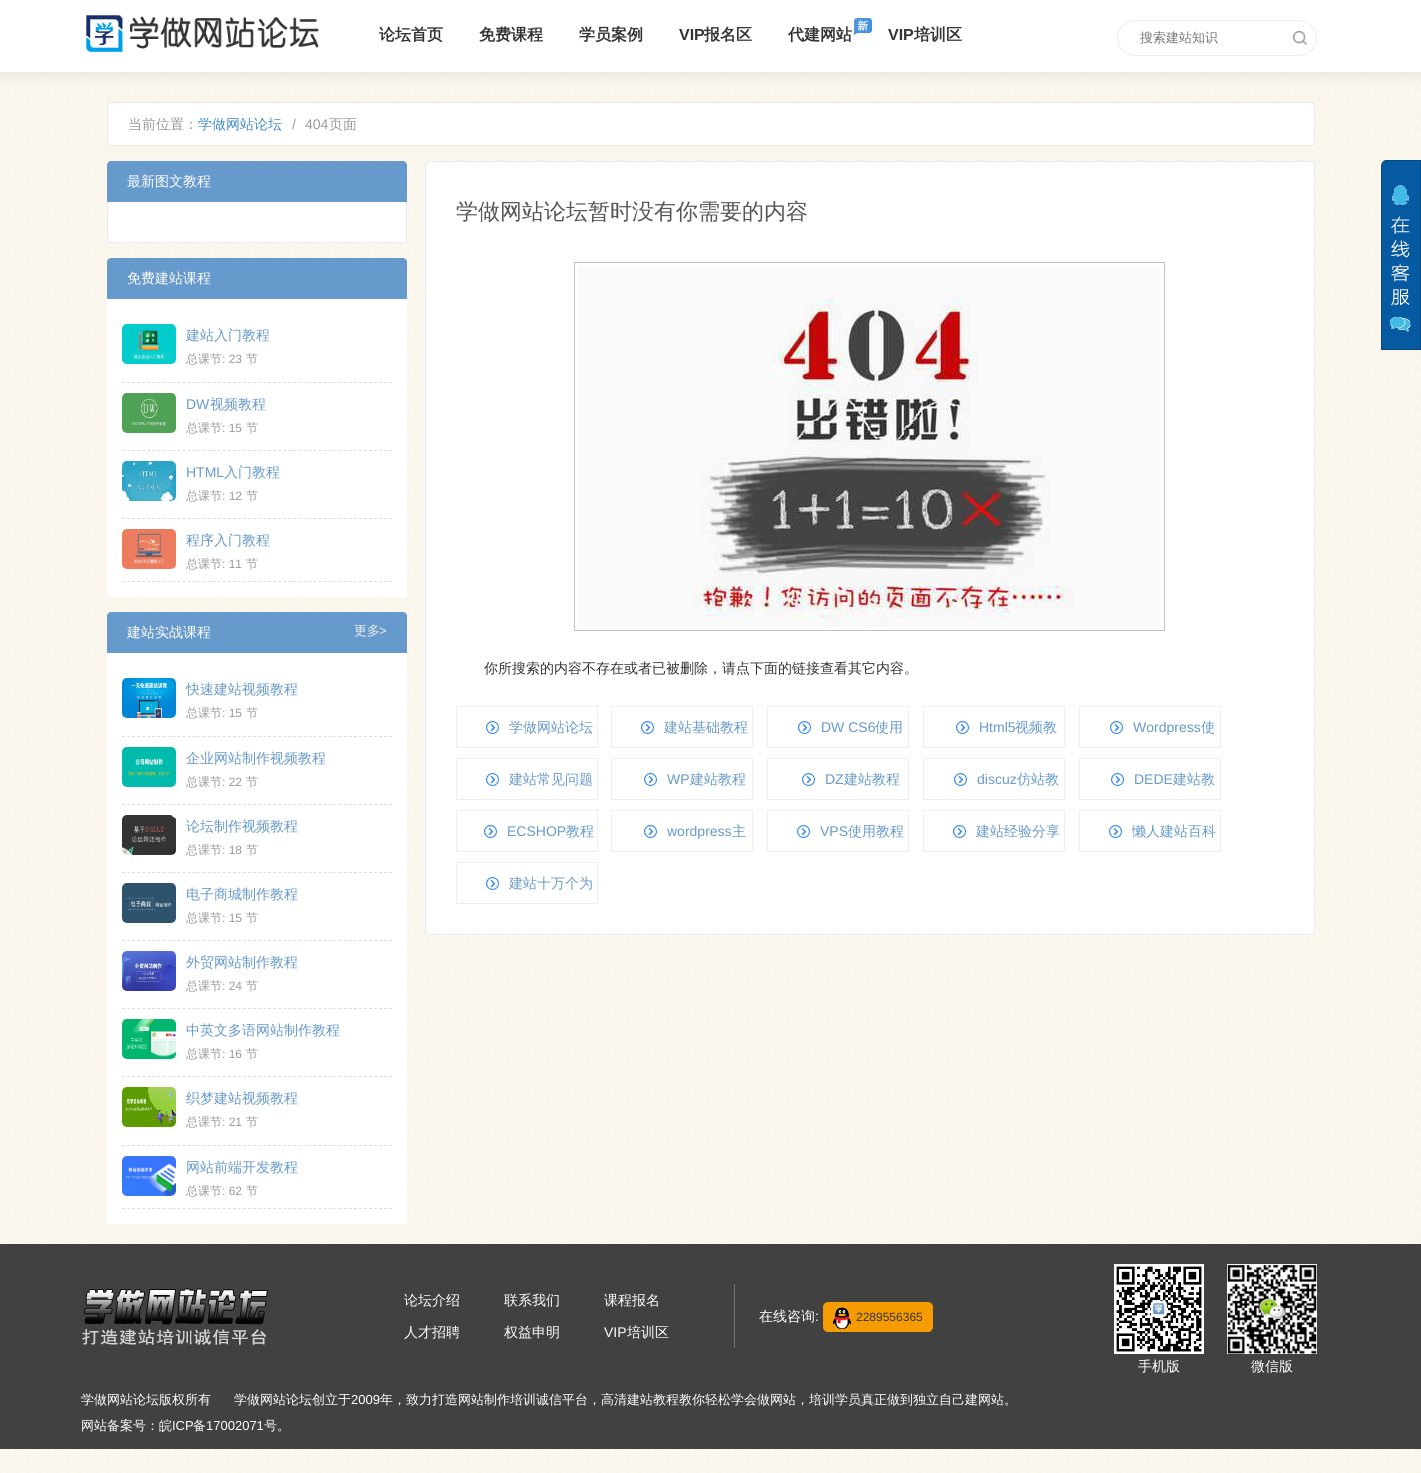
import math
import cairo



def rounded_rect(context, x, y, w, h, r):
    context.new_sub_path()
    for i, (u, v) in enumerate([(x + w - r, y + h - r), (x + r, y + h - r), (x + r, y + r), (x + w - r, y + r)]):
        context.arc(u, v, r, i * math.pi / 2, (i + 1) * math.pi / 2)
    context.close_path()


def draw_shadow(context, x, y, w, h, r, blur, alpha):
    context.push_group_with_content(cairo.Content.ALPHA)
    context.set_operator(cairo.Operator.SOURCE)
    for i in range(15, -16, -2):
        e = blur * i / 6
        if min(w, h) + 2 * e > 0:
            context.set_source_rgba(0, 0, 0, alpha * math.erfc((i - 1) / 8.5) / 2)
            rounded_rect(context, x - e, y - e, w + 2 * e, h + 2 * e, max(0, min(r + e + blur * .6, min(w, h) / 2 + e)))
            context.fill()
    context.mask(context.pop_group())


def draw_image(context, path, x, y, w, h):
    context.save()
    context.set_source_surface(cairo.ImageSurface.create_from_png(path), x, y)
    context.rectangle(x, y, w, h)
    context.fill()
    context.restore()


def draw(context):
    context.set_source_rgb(1, 1, 1)
    context.paint()
    draw_image(context, "images/1.png", 0, 72, 1421, 1401)
    context.set_source_rgb(0, 0, 0)
    draw_shadow(context, 0, 1, 1421, 72, 0, 8, 0.1)
    context.set_source_rgb(1, 1, 1)
    context.rectangle(0, 0, 1421, 72)
    context.fill()
    draw_image(context, "images/2.png", 86, 15, 233, 37)
    draw_image(context, "images/3.png", 854, 18, 18, 17)
    rounded_rect(context, 1117.5, 20.5, 199, 35, 17.5)
    context.set_source_rgb(232 / 255, 238 / 255, 246 / 255)
    context.set_line_width(1)
    context.stroke()
    draw_image(context, "images/4.png", 1293, 31, 14, 14)
    context.set_source_rgb(1, 1, 1)
    rounded_rect(context, 107.5, 102.5, 1207, 43, 3.5)
    context.fill_preserve()
    context.set_source_rgb(233 / 255, 233 / 255, 233 / 255)
    context.stroke()
    context.set_source_rgb(102 / 255, 153 / 255, 204 / 255)
    context.new_path()
    context.move_to(111, 161)
    context.line_to(403, 161)
    context.curve_to(405, 161, 407, 163, 407, 165)
    context.line_to(407, 202)
    context.line_to(107, 202)
    context.line_to(107, 165)
    context.curve_to(107, 163, 109, 161, 111, 161)
    context.close_path()
    context.fill()
    context.set_source_rgb(1, 1, 1)
    context.rectangle(108, 202, 298, 40)
    context.fill()
    context.set_source_rgb(233 / 255, 233 / 255, 233 / 255)
    context.rectangle(406, 202, 1, 41)
    context.fill()
    context.rectangle(107, 242, 300, 1)
    context.fill()
    context.rectangle(107, 202, 1, 41)
    context.fill()
    context.set_source_rgb(102 / 255, 153 / 255, 204 / 255)
    context.new_path()
    context.move_to(111, 258)
    context.line_to(403, 258)
    context.curve_to(405, 258, 407, 260, 407, 262)
    context.line_to(407, 299)
    context.line_to(107, 299)
    context.line_to(107, 262)
    context.curve_to(107, 260, 109, 258, 111, 258)
    context.close_path()
    context.fill()
    context.set_source_rgb(1, 1, 1)
    context.rectangle(107, 299, 300, 298)
    context.fill()
    context.new_path()
    context.move_to(122, 382.5)
    context.line_to(392, 382.5)
    context.set_source_rgb(221 / 255, 221 / 255, 221 / 255)
    context.set_dash([3, 2.04])
    context.stroke()
    draw_image(context, "images/5.png", 122, 324, 54, 40)
    context.new_path()
    context.move_to(122, 450.5)
    context.line_to(392, 450.5)
    context.stroke()
    draw_image(context, "images/6.png", 122, 393, 54, 40)
    context.new_path()
    context.move_to(122, 518.5)
    context.line_to(392, 518.5)
    context.stroke()
    draw_image(context, "images/7.png", 122, 461, 54, 40)
    context.new_path()
    context.move_to(122, 581.5)
    context.line_to(392, 581.5)
    context.stroke()
    draw_image(context, "images/8.png", 122, 529, 54, 40)
    context.set_source_rgb(102 / 255, 153 / 255, 204 / 255)
    context.new_path()
    context.move_to(111, 612)
    context.line_to(403, 612)
    context.curve_to(405, 612, 407, 614, 407, 616)
    context.line_to(407, 653)
    context.line_to(107, 653)
    context.line_to(107, 616)
    context.curve_to(107, 614, 109, 612, 111, 612)
    context.close_path()
    context.fill()
    context.set_source_rgb(1, 1, 1)
    context.rectangle(107, 653, 300, 571)
    context.fill()
    context.new_path()
    context.move_to(122, 736.5)
    context.line_to(392, 736.5)
    context.set_source_rgb(221 / 255, 221 / 255, 221 / 255)
    context.stroke()
    draw_image(context, "images/9.png", 122, 678, 54, 40)
    context.new_path()
    context.move_to(122, 804.5)
    context.line_to(392, 804.5)
    context.stroke()
    draw_image(context, "images/10.png", 122, 747, 54, 40)
    context.new_path()
    context.move_to(122, 872.5)
    context.line_to(392, 872.5)
    context.stroke()
    draw_image(context, "images/11.png", 122, 815, 54, 40)
    context.new_path()
    context.move_to(122, 940.5)
    context.line_to(392, 940.5)
    context.stroke()
    draw_image(context, "images/12.png", 122, 883, 54, 40)
    context.new_path()
    context.move_to(122, 1008.5)
    context.line_to(392, 1008.5)
    context.stroke()
    draw_image(context, "images/13.png", 122, 951, 54, 40)
    context.new_path()
    context.move_to(122, 1076.5)
    context.line_to(392, 1076.5)
    context.stroke()
    draw_image(context, "images/14.png", 122, 1019, 54, 40)
    context.new_path()
    context.move_to(122, 1145.5)
    context.line_to(392, 1145.5)
    context.stroke()
    draw_image(context, "images/15.png", 122, 1087, 54, 40)
    context.new_path()
    context.move_to(122, 1208.5)
    context.line_to(392, 1208.5)
    context.stroke()
    draw_image(context, "images/16.png", 122, 1156, 54, 40)
    context.set_source_rgb(1, 1, 1)
    rounded_rect(context, 425.5, 161.5, 889, 773, 3.5)
    context.fill_preserve()
    context.set_source_rgb(233 / 255, 233 / 255, 233 / 255)
    context.set_dash([])
    context.stroke()
    context.rectangle(574.5, 262.5, 590, 368)
    context.set_source_rgb(199 / 255, 191 / 255, 191 / 255)
    context.stroke()
    draw_image(context, "images/17.png", 578, 266, 583, 361)
    context.rectangle(456.5, 706.5, 141, 41)
    context.set_source_rgb(238 / 255, 238 / 255, 238 / 255)
    context.stroke()
    draw_image(context, "images/18.png", 486, 721, 13, 13)
    context.rectangle(611.5, 706.5, 141, 41)
    context.stroke()
    draw_image(context, "images/18.png", 641, 721, 13, 13)
    context.rectangle(767.5, 706.5, 141, 41)
    context.stroke()
    draw_image(context, "images/18.png", 798, 721, 13, 13)
    context.rectangle(923.5, 706.5, 141, 41)
    context.stroke()
    draw_image(context, "images/18.png", 956, 721, 13, 13)
    context.rectangle(1079.5, 706.5, 141, 41)
    context.stroke()
    draw_image(context, "images/18.png", 1110, 721, 13, 13)
    context.rectangle(456.5, 758.5, 141, 41)
    context.stroke()
    draw_image(context, "images/18.png", 486, 773, 13, 13)
    context.rectangle(611.5, 758.5, 141, 41)
    context.stroke()
    draw_image(context, "images/18.png", 644, 773, 13, 13)
    context.rectangle(767.5, 758.5, 141, 41)
    context.stroke()
    draw_image(context, "images/18.png", 802, 773, 13, 13)
    context.rectangle(923.5, 758.5, 141, 41)
    context.stroke()
    draw_image(context, "images/18.png", 954, 773, 13, 13)
    context.rectangle(1079.5, 758.5, 141, 41)
    context.stroke()
    draw_image(context, "images/18.png", 1111, 773, 13, 13)
    context.rectangle(456.5, 810.5, 141, 41)
    context.stroke()
    draw_image(context, "images/18.png", 484, 825, 13, 13)
    context.rectangle(611.5, 810.5, 141, 41)
    context.stroke()
    draw_image(context, "images/18.png", 644, 825, 13, 13)
    context.rectangle(767.5, 810.5, 141, 41)
    context.stroke()
    draw_image(context, "images/18.png", 797, 825, 13, 13)
    context.rectangle(923.5, 810.5, 141, 41)
    context.stroke()
    draw_image(context, "images/18.png", 953, 825, 13, 13)
    context.rectangle(1079.5, 810.5, 141, 41)
    context.stroke()
    draw_image(context, "images/18.png", 1109, 825, 13, 13)
    context.rectangle(456.5, 862.5, 141, 41)
    context.stroke()
    draw_image(context, "images/18.png", 486, 877, 13, 13)
    draw_image(context, "images/19.png", 1381, 160, 40, 190)
    context.set_source_rgb(65 / 255, 65 / 255, 65 / 255)
    context.rectangle(0, 1244, 1421, 205)
    context.fill()
    draw_image(context, "images/20.png", 82, 1288, 186, 57)
    context.set_source_rgb(115 / 255, 115 / 255, 115 / 255)
    context.rectangle(734, 1284, 1, 64)
    context.fill()
    context.set_source_rgb(246 / 255, 156 / 255, 0)
    rounded_rect(context, 823, 1302, 110, 30, 5)
    context.fill()
    draw_image(context, "images/21.png", 833, 1307, 18, 22)
    draw_image(context, "images/22.png", 1114, 1264, 90, 90)
    draw_image(context, "images/23.png", 1227, 1264, 90, 90)
    context.select_font_face("WenQuanYi Zen Hei", cairo.FontSlant.NORMAL, cairo.FontWeight.BOLD)
    context.set_font_size(16)
    context.set_source_rgb(51 / 255, 51 / 255, 51 / 255)
    context.move_to(379, 40)
    context.show_text("论坛首页")
    context.move_to(479, 40)
    context.show_text("免费课程")
    context.move_to(579, 40)
    context.show_text("学员案例")
    context.select_font_face("Liberation Sans", cairo.FontSlant.NORMAL, cairo.FontWeight.BOLD)
    context.move_to(679, 40)
    context.show_text("VIP")
    context.select_font_face("WenQuanYi Zen Hei", cairo.FontSlant.NORMAL, cairo.FontWeight.BOLD)
    context.move_to(704, 40)
    context.show_text("报名区")
    context.move_to(788, 40)
    context.show_text("代建网站")
    context.select_font_face("Liberation Sans", cairo.FontSlant.NORMAL, cairo.FontWeight.BOLD)
    context.move_to(888, 40)
    context.show_text("VIP")
    context.select_font_face("WenQuanYi Zen Hei", cairo.FontSlant.NORMAL, cairo.FontWeight.BOLD)
    context.move_to(914, 40)
    context.show_text("培训区")
    context.select_font_face("WenQuanYi Zen Hei Medium")
    context.set_font_size(13)
    context.set_source_rgb(117 / 255, 117 / 255, 117 / 255)
    context.move_to(1140, 42)
    context.show_text("搜索建站知识")
    context.set_font_size(14)
    context.set_source_rgb(153 / 255, 153 / 255, 153 / 255)
    context.move_to(128, 129)
    context.show_text("当前位置：")
    context.set_source_rgb(66 / 255, 139 / 255, 202 / 255)
    context.move_to(198, 129)
    context.show_text("学做网站论坛")
    context.select_font_face("Liberation Sans")
    context.set_source_rgb(153 / 255, 153 / 255, 153 / 255)
    context.move_to(292, 129)
    context.show_text("/")
    context.move_to(305, 129)
    context.show_text("404")
    context.select_font_face("WenQuanYi Zen Hei Medium")
    context.move_to(329, 129)
    context.show_text("页面")
    context.set_source_rgb(1, 1, 1)
    context.move_to(127, 186)
    context.show_text("最新图文教程")
    context.move_to(127, 283)
    context.show_text("免费建站课程")
    context.set_source_rgb(102 / 255, 153 / 255, 204 / 255)
    context.move_to(186, 340)
    context.show_text("建站入门教程")
    context.set_font_size(12)
    context.set_source_rgb(153 / 255, 153 / 255, 153 / 255)
    context.move_to(186, 363)
    context.show_text("总课节")
    context.select_font_face("Liberation Sans")
    context.move_to(222, 363)
    context.show_text(": 23")
    context.select_font_face("WenQuanYi Zen Hei Medium")
    context.move_to(246, 363)
    context.show_text("节")
    context.select_font_face("Liberation Sans")
    context.set_font_size(14)
    context.set_source_rgb(102 / 255, 153 / 255, 204 / 255)
    context.move_to(186, 409)
    context.show_text("DW")
    context.select_font_face("WenQuanYi Zen Hei Medium")
    context.move_to(210, 409)
    context.show_text("视频教程")
    context.set_font_size(12)
    context.set_source_rgb(153 / 255, 153 / 255, 153 / 255)
    context.move_to(186, 432)
    context.show_text("总课节")
    context.select_font_face("Liberation Sans")
    context.move_to(222, 432)
    context.show_text(": 15")
    context.select_font_face("WenQuanYi Zen Hei Medium")
    context.move_to(246, 432)
    context.show_text("节")
    context.select_font_face("Liberation Sans")
    context.set_font_size(14)
    context.set_source_rgb(102 / 255, 153 / 255, 204 / 255)
    context.move_to(186, 477)
    context.show_text("HTML")
    context.select_font_face("WenQuanYi Zen Hei Medium")
    context.move_to(224, 477)
    context.show_text("入门教程")
    context.set_font_size(12)
    context.set_source_rgb(153 / 255, 153 / 255, 153 / 255)
    context.move_to(186, 500)
    context.show_text("总课节")
    context.select_font_face("Liberation Sans")
    context.move_to(222, 500)
    context.show_text(": 12")
    context.select_font_face("WenQuanYi Zen Hei Medium")
    context.move_to(246, 500)
    context.show_text("节")
    context.set_font_size(14)
    context.set_source_rgb(102 / 255, 153 / 255, 204 / 255)
    context.move_to(186, 545)
    context.show_text("程序入门教程")
    context.set_font_size(12)
    context.set_source_rgb(153 / 255, 153 / 255, 153 / 255)
    context.move_to(186, 568)
    context.show_text("总课节")
    context.select_font_face("Liberation Sans")
    context.move_to(222, 568)
    context.show_text(": 11")
    context.select_font_face("WenQuanYi Zen Hei Medium")
    context.move_to(246, 568)
    context.show_text("节")
    context.set_font_size(14)
    context.set_source_rgb(1, 1, 1)
    context.move_to(127, 637)
    context.show_text("建站实战课程")
    context.set_font_size(13)
    context.set_source_rgb(238 / 255, 238 / 255, 238 / 255)
    context.move_to(354, 635)
    context.show_text("更多")
    context.select_font_face("Liberation Sans")
    context.move_to(379, 635)
    context.show_text(">")
    context.select_font_face("WenQuanYi Zen Hei Medium")
    context.set_font_size(14)
    context.set_source_rgb(102 / 255, 153 / 255, 204 / 255)
    context.move_to(186, 694)
    context.show_text("快速建站视频教程")
    context.set_font_size(12)
    context.set_source_rgb(153 / 255, 153 / 255, 153 / 255)
    context.move_to(186, 717)
    context.show_text("总课节")
    context.select_font_face("Liberation Sans")
    context.move_to(222, 717)
    context.show_text(": 15")
    context.select_font_face("WenQuanYi Zen Hei Medium")
    context.move_to(246, 717)
    context.show_text("节")
    context.set_font_size(14)
    context.set_source_rgb(102 / 255, 153 / 255, 204 / 255)
    context.move_to(186, 763)
    context.show_text("企业网站制作视频教程")
    context.set_font_size(12)
    context.set_source_rgb(153 / 255, 153 / 255, 153 / 255)
    context.move_to(186, 786)
    context.show_text("总课节")
    context.select_font_face("Liberation Sans")
    context.move_to(222, 786)
    context.show_text(": 22")
    context.select_font_face("WenQuanYi Zen Hei Medium")
    context.move_to(246, 786)
    context.show_text("节")
    context.set_font_size(14)
    context.set_source_rgb(102 / 255, 153 / 255, 204 / 255)
    context.move_to(186, 831)
    context.show_text("论坛制作视频教程")
    context.set_font_size(12)
    context.set_source_rgb(153 / 255, 153 / 255, 153 / 255)
    context.move_to(186, 854)
    context.show_text("总课节")
    context.select_font_face("Liberation Sans")
    context.move_to(222, 854)
    context.show_text(": 18")
    context.select_font_face("WenQuanYi Zen Hei Medium")
    context.move_to(246, 854)
    context.show_text("节")
    context.set_font_size(14)
    context.set_source_rgb(102 / 255, 153 / 255, 204 / 255)
    context.move_to(186, 899)
    context.show_text("电子商城制作教程")
    context.set_font_size(12)
    context.set_source_rgb(153 / 255, 153 / 255, 153 / 255)
    context.move_to(186, 922)
    context.show_text("总课节")
    context.select_font_face("Liberation Sans")
    context.move_to(222, 922)
    context.show_text(": 15")
    context.select_font_face("WenQuanYi Zen Hei Medium")
    context.move_to(246, 922)
    context.show_text("节")
    context.set_font_size(14)
    context.set_source_rgb(102 / 255, 153 / 255, 204 / 255)
    context.move_to(186, 967)
    context.show_text("外贸网站制作教程")
    context.set_font_size(12)
    context.set_source_rgb(153 / 255, 153 / 255, 153 / 255)
    context.move_to(186, 990)
    context.show_text("总课节")
    context.select_font_face("Liberation Sans")
    context.move_to(222, 990)
    context.show_text(": 24")
    context.select_font_face("WenQuanYi Zen Hei Medium")
    context.move_to(246, 990)
    context.show_text("节")
    context.set_font_size(14)
    context.set_source_rgb(102 / 255, 153 / 255, 204 / 255)
    context.move_to(186, 1035)
    context.show_text("中英文多语网站制作教程")
    context.set_font_size(12)
    context.set_source_rgb(153 / 255, 153 / 255, 153 / 255)
    context.move_to(186, 1058)
    context.show_text("总课节")
    context.select_font_face("Liberation Sans")
    context.move_to(222, 1058)
    context.show_text(": 16")
    context.select_font_face("WenQuanYi Zen Hei Medium")
    context.move_to(246, 1058)
    context.show_text("节")
    context.set_font_size(14)
    context.set_source_rgb(102 / 255, 153 / 255, 204 / 255)
    context.move_to(186, 1103)
    context.show_text("织梦建站视频教程")
    context.set_font_size(12)
    context.set_source_rgb(153 / 255, 153 / 255, 153 / 255)
    context.move_to(186, 1126)
    context.show_text("总课节")
    context.select_font_face("Liberation Sans")
    context.move_to(222, 1126)
    context.show_text(": 21")
    context.select_font_face("WenQuanYi Zen Hei Medium")
    context.move_to(246, 1126)
    context.show_text("节")
    context.set_font_size(14)
    context.set_source_rgb(102 / 255, 153 / 255, 204 / 255)
    context.move_to(186, 1172)
    context.show_text("网站前端开发教程")
    context.set_font_size(12)
    context.set_source_rgb(153 / 255, 153 / 255, 153 / 255)
    context.move_to(186, 1195)
    context.show_text("总课节")
    context.select_font_face("Liberation Sans")
    context.move_to(222, 1195)
    context.show_text(": 62")
    context.select_font_face("WenQuanYi Zen Hei Medium")
    context.move_to(246, 1195)
    context.show_text("节")
    context.set_font_size(22)
    context.set_source_rgb(85 / 255, 85 / 255, 85 / 255)
    context.move_to(456, 219)
    context.show_text("学做网站论坛暂时没有你需要的内容")
    context.set_font_size(14)
    context.set_source_rgb(51 / 255, 51 / 255, 51 / 255)
    context.move_to(484, 673)
    context.show_text("你所搜索的内容不存在或者已被删除，请点下面的链接查看其它内容。")
    context.set_source_rgb(102 / 255, 153 / 255, 204 / 255)
    context.move_to(509, 732)
    context.show_text("学做网站论坛")
    context.move_to(664, 732)
    context.show_text("建站基础教程")
    context.select_font_face("Liberation Sans")
    context.move_to(821, 732)
    context.show_text("DW CS6")
    context.select_font_face("WenQuanYi Zen Hei Medium")
    context.move_to(875, 732)
    context.show_text("使用")
    context.select_font_face("Liberation Sans")
    context.move_to(979, 732)
    context.show_text("Html5")
    context.select_font_face("WenQuanYi Zen Hei Medium")
    context.move_to(1015, 732)
    context.show_text("视频教")
    context.select_font_face("Liberation Sans")
    context.move_to(1133, 732)
    context.show_text("Wordpress")
    context.select_font_face("WenQuanYi Zen Hei Medium")
    context.move_to(1201, 732)
    context.show_text("使")
    context.move_to(509, 784)
    context.show_text("建站常见问题")
    context.select_font_face("Liberation Sans")
    context.move_to(667, 784)
    context.show_text("WP")
    context.select_font_face("WenQuanYi Zen Hei Medium")
    context.move_to(690, 784)
    context.show_text("建站教程")
    context.select_font_face("Liberation Sans")
    context.move_to(825, 784)
    context.show_text("DZ")
    context.select_font_face("WenQuanYi Zen Hei Medium")
    context.move_to(844, 784)
    context.show_text("建站教程")
    context.select_font_face("Liberation Sans")
    context.move_to(977, 784)
    context.show_text("discuz")
    context.select_font_face("WenQuanYi Zen Hei Medium")
    context.move_to(1017, 784)
    context.show_text("仿站教")
    context.select_font_face("Liberation Sans")
    context.move_to(1134, 784)
    context.show_text("DEDE")
    context.select_font_face("WenQuanYi Zen Hei Medium")
    context.move_to(1173, 784)
    context.show_text("建站教")
    context.select_font_face("Liberation Sans")
    context.move_to(507, 836)
    context.show_text("ECSHOP")
    context.select_font_face("WenQuanYi Zen Hei Medium")
    context.move_to(566, 836)
    context.show_text("教程")
    context.select_font_face("Liberation Sans")
    context.move_to(667, 836)
    context.show_text("wordpress")
    context.select_font_face("WenQuanYi Zen Hei Medium")
    context.move_to(732, 836)
    context.show_text("主")
    context.select_font_face("Liberation Sans")
    context.move_to(820, 836)
    context.show_text("VPS")
    context.select_font_face("WenQuanYi Zen Hei Medium")
    context.move_to(848, 836)
    context.show_text("使用教程")
    context.move_to(976, 836)
    context.show_text("建站经验分享")
    context.move_to(1132, 836)
    context.show_text("懒人建站百科")
    context.move_to(509, 888)
    context.show_text("建站十万个为")
    context.set_source_rgb(1, 1, 1)
    context.move_to(404, 1305)
    context.show_text("论坛介绍")
    context.move_to(504, 1305)
    context.show_text("联系我们")
    context.move_to(604, 1305)
    context.show_text("课程报名")
    context.move_to(404, 1337)
    context.show_text("人才招聘")
    context.move_to(504, 1337)
    context.show_text("权益申明")
    context.select_font_face("Liberation Sans")
    context.move_to(604, 1337)
    context.show_text("VIP")
    context.select_font_face("WenQuanYi Zen Hei Medium")
    context.move_to(627, 1337)
    context.show_text("培训区")
    context.move_to(759, 1321)
    context.show_text("在线咨询")
    context.select_font_face("Liberation Sans")
    context.move_to(815, 1321)
    context.show_text(":")
    context.set_font_size(12)
    context.set_source_rgb(51 / 255, 51 / 255, 51 / 255)
    context.move_to(856, 1321)
    context.show_text("2289556365")
    context.select_font_face("WenQuanYi Zen Hei Medium")
    context.set_font_size(14)
    context.set_source_rgb(1, 1, 1)
    context.move_to(1138, 1371)
    context.show_text("手机版")
    context.move_to(1251, 1371)
    context.show_text("微信版")
    context.set_font_size(13)
    context.move_to(81, 1404)
    context.show_text("学做网站论坛版权所有")
    context.move_to(234, 1404)
    context.show_text("学做网站论坛创立于")
    context.select_font_face("Liberation Sans")
    context.move_to(351, 1404)
    context.show_text("2009")
    context.select_font_face("WenQuanYi Zen Hei Medium")
    context.move_to(380, 1404)
    context.show_text("年，致力打造网站制作培训诚信平台，高清建站教程教你轻松学会做网站，培训学员真正做到独立自己建网站。")
    context.move_to(81, 1430)
    context.show_text("网站备案号：皖")
    context.select_font_face("Liberation Sans")
    context.move_to(172, 1430)
    context.show_text("ICP")
    context.select_font_face("WenQuanYi Zen Hei Medium")
    context.move_to(193, 1430)
    context.show_text("备")
    context.select_font_face("Liberation Sans")
    context.move_to(206, 1430)
    context.show_text("17002071")
    context.select_font_face("WenQuanYi Zen Hei Medium")
    context.move_to(264, 1430)
    context.show_text("号。")


surface = cairo.ImageSurface(cairo.Format.RGB24, 1421, 1473)
context = cairo.Context(surface)
options = cairo.FontOptions()
options.set_hint_metrics(cairo.HintMetrics.OFF)
options.set_hint_style(cairo.HintStyle.NONE)
context.set_font_options(options)
context.set_miter_limit(4)
draw(context)
surface.write_to_png("out.png")
